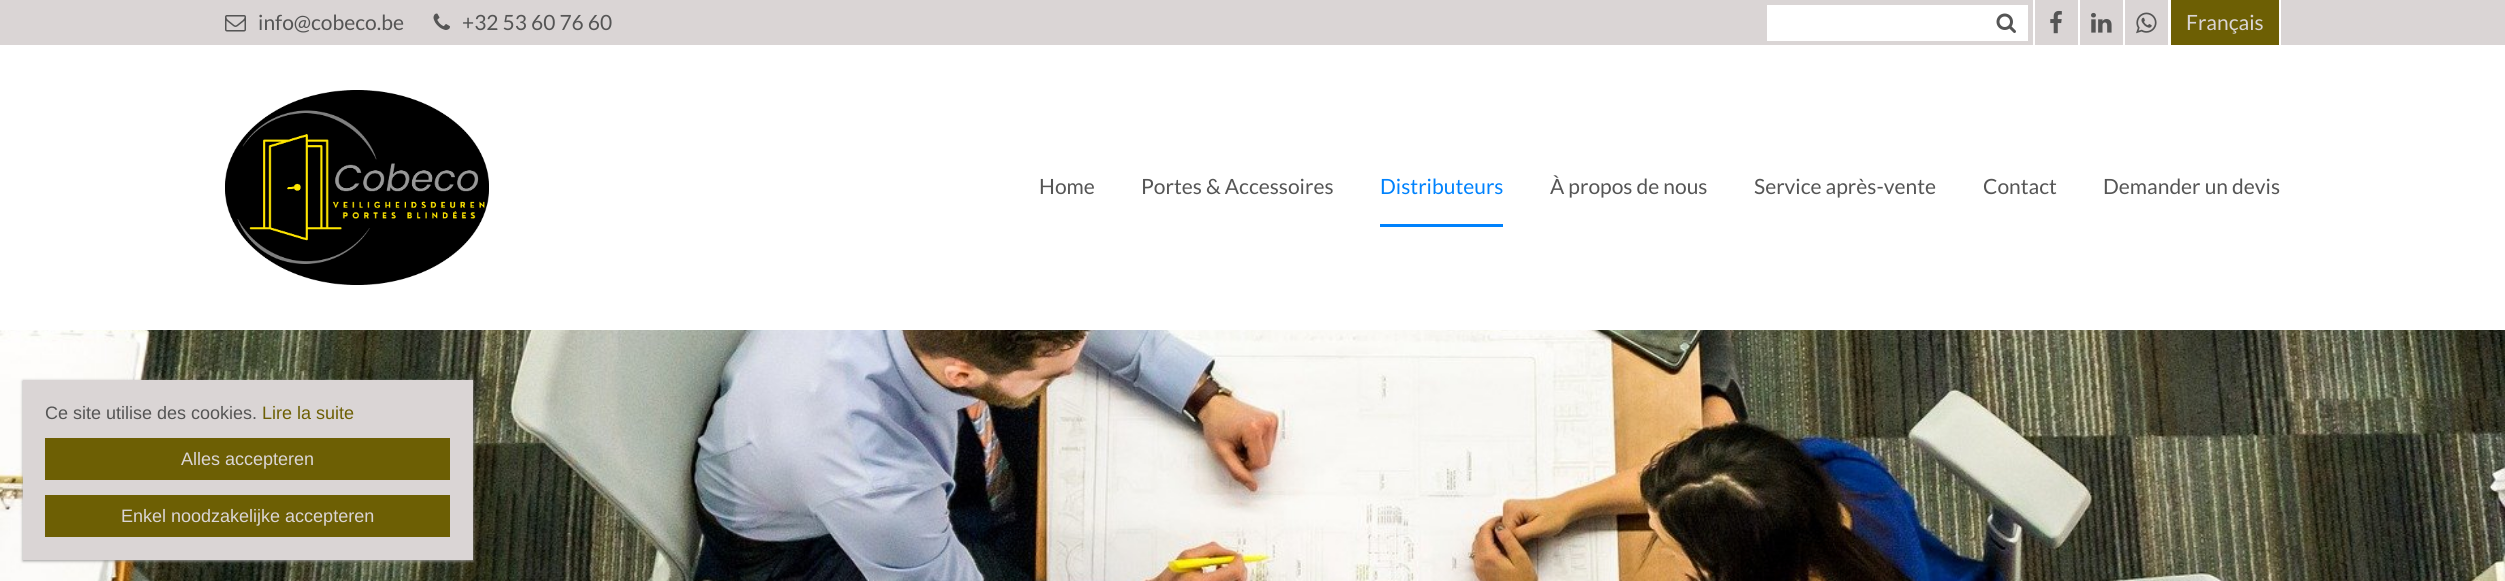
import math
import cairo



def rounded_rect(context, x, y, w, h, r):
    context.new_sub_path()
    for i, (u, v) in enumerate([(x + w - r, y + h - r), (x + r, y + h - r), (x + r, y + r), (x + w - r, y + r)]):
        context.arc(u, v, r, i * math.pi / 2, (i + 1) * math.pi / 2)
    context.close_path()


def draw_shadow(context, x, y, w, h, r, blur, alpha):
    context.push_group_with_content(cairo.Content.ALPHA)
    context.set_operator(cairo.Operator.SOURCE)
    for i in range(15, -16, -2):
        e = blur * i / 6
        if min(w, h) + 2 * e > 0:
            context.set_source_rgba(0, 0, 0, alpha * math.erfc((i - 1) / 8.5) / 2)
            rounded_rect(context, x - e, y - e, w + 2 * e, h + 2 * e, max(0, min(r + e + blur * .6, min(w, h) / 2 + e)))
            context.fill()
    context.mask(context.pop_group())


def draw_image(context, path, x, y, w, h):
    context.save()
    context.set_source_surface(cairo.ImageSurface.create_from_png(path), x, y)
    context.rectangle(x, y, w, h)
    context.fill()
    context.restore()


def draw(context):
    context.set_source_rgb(1, 1, 1)
    context.paint()
    context.set_source_rgb(218 / 255, 213 / 255, 213 / 255)
    context.rectangle(0, 0, 2505, 45)
    context.fill()
    draw_image(context, "images/1.png", 225, 15, 21, 17)
    draw_image(context, "images/2.png", 433, 13, 17, 17)
    context.set_source_rgb(1, 1, 1)
    context.rectangle(1767, 5, 261, 36)
    context.fill()
    draw_image(context, "images/3.png", 1996, 13, 20, 20)
    context.rectangle(2033, 0, 2, 45)
    context.fill()
    draw_image(context, "images/4.png", 2050, 10, 12, 24)
    context.rectangle(2078, 0, 2, 45)
    context.fill()
    draw_image(context, "images/5.png", 2091, 12, 21, 21)
    context.rectangle(2123, 0, 2, 45)
    context.fill()
    draw_image(context, "images/6.png", 2136, 12, 21, 22)
    context.rectangle(2168, 0, 3, 45)
    context.fill()
    context.set_source_rgb(109 / 255, 95 / 255, 4 / 255)
    context.rectangle(2171, 0, 108, 45)
    context.fill()
    context.set_source_rgb(1, 1, 1)
    context.rectangle(2279, 0, 2, 45)
    context.fill()
    draw_image(context, "images/7.png", 225, 90, 264, 195)
    context.set_source_rgb(0, 130 / 255, 253 / 255)
    context.rectangle(1380, 224, 123, 3)
    context.fill()
    draw_image(context, "images/8.png", 0, 330, 2505, 251)
    context.set_source_rgb(153 / 255, 153 / 255, 153 / 255)
    draw_shadow(context, 23, 381, 450, 180, 0, 1.5, 1)
    context.set_source_rgb(218 / 255, 213 / 255, 213 / 255)
    context.rectangle(23, 380, 450, 180)
    context.fill()
    context.set_source_rgb(109 / 255, 95 / 255, 4 / 255)
    context.rectangle(45, 438, 405, 42)
    context.fill()
    context.rectangle(45, 495, 405, 42)
    context.fill()
    context.select_font_face("Lato")
    context.set_font_size(21)
    context.set_source_rgb(85 / 255, 85 / 255, 85 / 255)
    context.move_to(258, 30)
    context.show_text("info@cobeco.be")
    context.move_to(462, 30)
    context.show_text("+32 53 60 76 60")
    context.set_source_rgb(218 / 255, 213 / 255, 213 / 255)
    context.move_to(2186, 30)
    context.show_text("Français")
    context.set_source_rgb(85 / 255, 85 / 255, 85 / 255)
    context.move_to(1039, 194)
    context.show_text("Home")
    context.move_to(1141, 194)
    context.show_text("Portes & Accessoires")
    context.set_source_rgb(0, 130 / 255, 253 / 255)
    context.move_to(1380, 194)
    context.show_text("Distributeurs")
    context.set_source_rgb(85 / 255, 85 / 255, 85 / 255)
    context.move_to(1550, 194)
    context.show_text("À propos de nous")
    context.move_to(1754, 194)
    context.show_text("Service après-vente")
    context.move_to(1983, 194)
    context.show_text("Contact")
    context.move_to(2103, 194)
    context.show_text("Demander un devis")
    context.select_font_face("Liberation Sans")
    context.set_font_size(18)
    context.move_to(45, 419)
    context.show_text("Ce site utilise des cookies.")
    context.set_source_rgb(109 / 255, 95 / 255, 4 / 255)
    context.move_to(262, 419)
    context.show_text("Lire la suite")
    context.set_source_rgb(218 / 255, 213 / 255, 213 / 255)
    context.move_to(181, 465)
    context.show_text("Alles accepteren")
    context.move_to(121, 522)
    context.show_text("Enkel noodzakelijke accepteren")


surface = cairo.ImageSurface(cairo.Format.RGB24, 2505, 581)
context = cairo.Context(surface)
options = cairo.FontOptions()
options.set_hint_metrics(cairo.HintMetrics.OFF)
options.set_hint_style(cairo.HintStyle.NONE)
context.set_font_options(options)
context.set_miter_limit(4)
draw(context)
surface.write_to_png("out.png")
